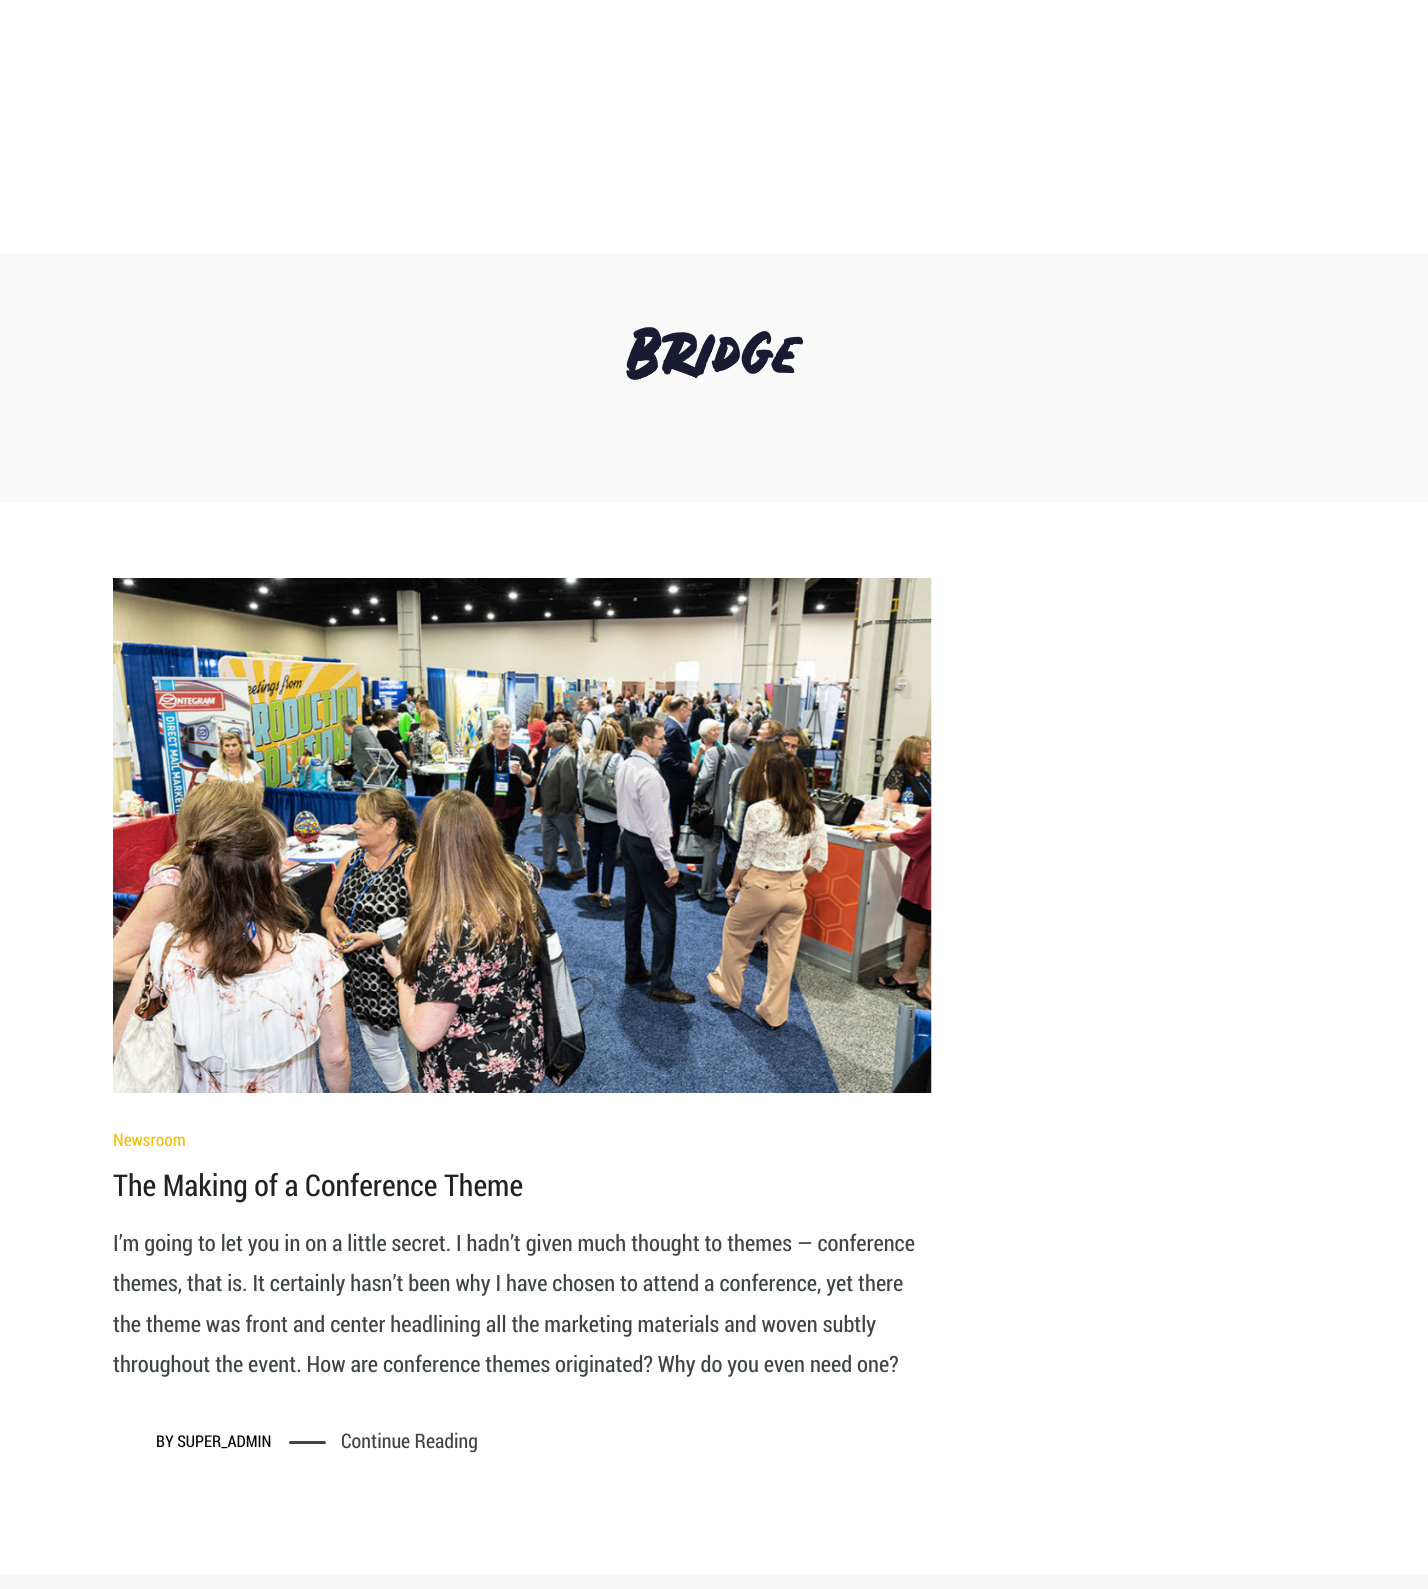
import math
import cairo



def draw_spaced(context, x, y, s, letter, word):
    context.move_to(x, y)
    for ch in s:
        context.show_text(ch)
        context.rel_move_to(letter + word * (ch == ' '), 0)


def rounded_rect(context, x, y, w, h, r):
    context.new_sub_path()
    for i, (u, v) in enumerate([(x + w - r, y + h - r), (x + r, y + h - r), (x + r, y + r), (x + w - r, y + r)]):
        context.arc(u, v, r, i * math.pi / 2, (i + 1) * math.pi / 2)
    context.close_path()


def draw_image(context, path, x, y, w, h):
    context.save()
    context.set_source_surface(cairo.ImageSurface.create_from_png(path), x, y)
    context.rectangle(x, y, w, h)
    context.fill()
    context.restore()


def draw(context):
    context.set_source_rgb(1, 1, 1)
    context.paint()
    context.set_source_rgb(249 / 255, 249 / 255, 249 / 255)
    context.rectangle(0, 253, 1428, 250)
    context.fill()
    draw_image(context, "images/1.png", 113, 578, 819, 515)
    context.set_source_rgb(63 / 255, 68 / 255, 68 / 255)
    rounded_rect(context, 289, 1441, 37, 3, 1.5)
    context.fill()
    context.set_source_rgb(247 / 255, 247 / 255, 247 / 255)
    context.rectangle(0, 1574, 1428, 15)
    context.fill()
    context.select_font_face("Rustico", cairo.FontSlant.NORMAL, cairo.FontWeight.BOLD)
    context.set_font_size(56)
    context.set_source_rgb(24 / 255, 27 / 255, 49 / 255)
    draw_spaced(context, 628, 373, "Bridge", 2.5, 0)
    context.select_font_face("Roboto Condensed")
    context.set_font_size(17.5)
    context.set_source_rgb(246 / 255, 190 / 255, 0)
    context.move_to(113, 1146)
    context.show_text("Newsroom")
    context.set_font_size(30)
    context.set_source_rgb(34 / 255, 34 / 255, 34 / 255)
    context.move_to(113, 1196)
    context.show_text("The Making of a Conference Theme")
    context.set_font_size(22.5)
    context.set_source_rgb(63 / 255, 68 / 255, 68 / 255)
    context.move_to(113, 1251)
    context.show_text("I’m going to let you in on a little secret. I hadn’t given much thought to themes — conference")
    context.move_to(113, 1291)
    context.show_text("themes, that is. It certainly hasn’t been why I have chosen to attend a conference, yet there")
    context.move_to(113, 1332)
    context.show_text("the theme was front and center headlining all the marketing materials and woven subtly")
    context.move_to(113, 1372)
    context.show_text("throughout the event. How are conference themes originated? Why do you even need one?")
    context.set_font_size(16.25)
    context.set_source_rgb(0, 0, 0)
    context.move_to(156, 1447)
    context.show_text("BY SUPER_ADMIN")
    context.set_font_size(20)
    context.set_source_rgb(63 / 255, 68 / 255, 68 / 255)
    context.move_to(341, 1448)
    context.show_text("Continue Reading")


surface = cairo.ImageSurface(cairo.Format.RGB24, 1428, 1589)
context = cairo.Context(surface)
options = cairo.FontOptions()
options.set_hint_metrics(cairo.HintMetrics.OFF)
options.set_hint_style(cairo.HintStyle.NONE)
context.set_font_options(options)
context.set_miter_limit(4)
draw(context)
surface.write_to_png("out.png")
